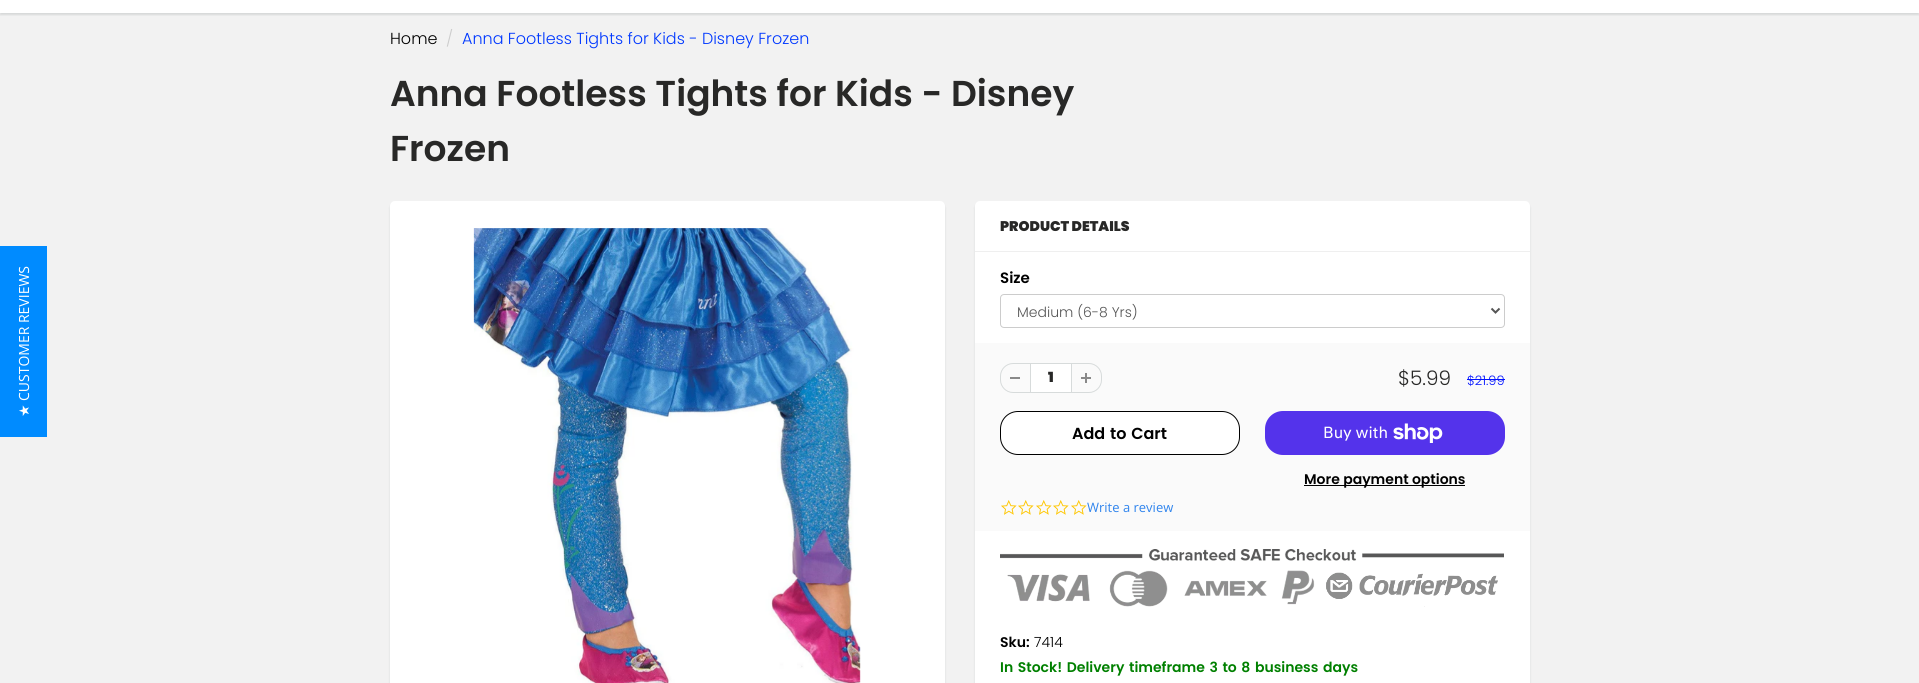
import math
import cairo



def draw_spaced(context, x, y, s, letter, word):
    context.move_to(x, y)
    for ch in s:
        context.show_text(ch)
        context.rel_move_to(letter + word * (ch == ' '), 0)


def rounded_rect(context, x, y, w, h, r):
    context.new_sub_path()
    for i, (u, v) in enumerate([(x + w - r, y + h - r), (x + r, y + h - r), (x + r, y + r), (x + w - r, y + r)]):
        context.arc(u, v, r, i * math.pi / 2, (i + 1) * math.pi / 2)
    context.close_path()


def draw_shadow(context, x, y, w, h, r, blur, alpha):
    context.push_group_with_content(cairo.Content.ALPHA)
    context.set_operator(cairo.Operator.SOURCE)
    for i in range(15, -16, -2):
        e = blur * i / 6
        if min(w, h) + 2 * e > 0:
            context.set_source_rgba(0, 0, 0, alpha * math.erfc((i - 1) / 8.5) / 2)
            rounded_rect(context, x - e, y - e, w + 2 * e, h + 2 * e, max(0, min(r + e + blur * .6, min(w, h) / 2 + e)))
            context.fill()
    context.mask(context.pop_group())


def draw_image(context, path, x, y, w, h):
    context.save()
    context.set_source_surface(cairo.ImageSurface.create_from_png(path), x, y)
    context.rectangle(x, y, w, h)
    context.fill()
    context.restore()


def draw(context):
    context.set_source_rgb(1, 1, 1)
    context.paint()
    context.set_source_rgb(242 / 255, 242 / 255, 242 / 255)
    context.rectangle(0, 13, 1919, 670)
    context.fill()
    context.set_source_rgb(0, 139 / 255, 1)
    context.rectangle(0, 246, 47, 191)
    context.fill()
    context.save()
    context.rectangle(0, 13, 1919, 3)
    context.clip()
    context.set_source_rgb(11 / 255, 25 / 255, 28 / 255)
    draw_shadow(context, 0, -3, 1919, 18, 0, 1, 0.12)
    context.restore()
    context.set_source_rgb(11 / 255, 25 / 255, 28 / 255)
    draw_shadow(context, 390, 203, 555, 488, 5, 1, 0.1)
    context.set_source_rgb(1, 1, 1)
    rounded_rect(context, 390, 201, 555, 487, 5)
    context.fill()
    draw_image(context, "images/1.png", 473, 228, 388, 455)
    context.set_source_rgb(11 / 255, 25 / 255, 28 / 255)
    draw_shadow(context, 975, 203, 555, 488, 5, 1, 0.1)
    context.set_source_rgb(1, 1, 1)
    rounded_rect(context, 975, 201, 555, 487, 5)
    context.fill()
    context.set_source_rgb(239 / 255, 239 / 255, 239 / 255)
    context.rectangle(975, 251, 555, 1)
    context.fill()
    rounded_rect(context, 1000.5, 294.5, 504, 33, 3.5)
    context.set_source_rgb(204 / 255, 204 / 255, 204 / 255)
    context.set_line_width(1)
    context.stroke()
    context.new_path()
    context.move_to(1491.5, 308.5)
    context.line_to(1495.5, 312.5)
    context.line_to(1499.5, 308.5)
    context.set_source_rgb(85 / 255, 85 / 255, 85 / 255)
    context.set_line_width(2)
    context.stroke()
    context.set_source_rgb(250 / 255, 250 / 255, 250 / 255)
    context.rectangle(975, 343, 555, 188)
    context.fill()
    context.set_source_rgb(137 / 255, 137 / 255, 137 / 255)
    context.rectangle(1010, 377, 10, 2)
    context.fill()
    context.set_source_rgb(215 / 255, 219 / 255, 219 / 255)
    context.set_fill_rule(cairo.FillRule.EVEN_ODD)
    context.new_path()
    context.move_to(1013, 363)
    context.line_to(1030, 363)
    context.line_to(1030, 393)
    context.line_to(1013, 393)
    context.curve_to(1006, 393, 1000, 387, 1000, 380)
    context.line_to(1000, 376)
    context.curve_to(1000, 369, 1006, 363, 1013, 363)
    context.close_path()
    context.move_to(1013, 364)
    context.line_to(1030, 364)
    context.line_to(1030, 392)
    context.line_to(1013, 392)
    context.curve_to(1006.5, 392, 1001, 386.5, 1001, 380)
    context.line_to(1001, 376)
    context.curve_to(1001, 369.5, 1006.5, 364, 1013, 364)
    context.close_path()
    context.fill()
    context.set_source_rgb(1, 1, 1)
    context.rectangle(1030.5, 363.5, 41, 29)
    context.fill_preserve()
    context.set_source_rgb(215 / 255, 219 / 255, 219 / 255)
    context.set_line_width(1)
    context.stroke()
    draw_image(context, "images/2.png", 1081, 373, 10, 10)
    context.new_path()
    context.move_to(1072, 363)
    context.line_to(1089, 363)
    context.curve_to(1096, 363, 1102, 369, 1102, 376)
    context.line_to(1102, 380)
    context.curve_to(1102, 387, 1096, 393, 1089, 393)
    context.line_to(1072, 393)
    context.close_path()
    context.move_to(1072, 364)
    context.line_to(1089, 364)
    context.curve_to(1095.5, 364, 1101, 369.5, 1101, 376)
    context.line_to(1101, 380)
    context.curve_to(1101, 386.5, 1095.5, 392, 1089, 392)
    context.line_to(1072, 392)
    context.close_path()
    context.fill()
    context.set_source_rgb(0, 17 / 255, 1)
    context.rectangle(1467, 379, 38, 1)
    context.fill()
    context.set_source_rgb(1, 1, 1)
    rounded_rect(context, 1000.5, 411.5, 239, 43, 17.5)
    context.fill_preserve()
    context.set_source_rgb(0, 0, 0)
    context.stroke()
    context.set_source_rgb(84 / 255, 51 / 255, 235 / 255)
    rounded_rect(context, 1265, 411, 240, 44, 18)
    context.fill()
    draw_image(context, "images/3.png", 1393, 423, 50, 20)
    context.set_source_rgb(0, 0, 0)
    context.rectangle(1304, 485, 161, 1)
    context.fill()
    draw_image(context, "images/4.png", 1001, 500, 16, 15)
    draw_image(context, "images/4.png", 1018, 500, 16, 15)
    draw_image(context, "images/4.png", 1036, 500, 16, 15)
    draw_image(context, "images/4.png", 1053, 500, 16, 15)
    draw_image(context, "images/4.png", 1071, 500, 16, 15)
    draw_image(context, "images/5.png", 1000, 549, 504, 58)
    context.select_font_face("Open Sans")
    context.set_font_size(14)
    context.set_source_rgb(1, 1, 1)
    context.save()
    context.translate(29, 401)
    context.rotate(-90 * math.pi / 180)
    context.move_to(0, 0)
    context.show_text("CUSTOMER REVIEWS")
    context.restore()
    context.select_font_face("DejaVu Sans")
    context.save()
    context.translate(29, 417)
    context.rotate(-90 * math.pi / 180)
    context.move_to(0, 0)
    context.show_text("★")
    context.restore()
    context.select_font_face("Poppins Light")
    context.set_font_size(16)
    context.set_source_rgb(0, 0, 0)
    context.move_to(390, 44)
    context.show_text("Home")
    context.set_source_rgb(204 / 255, 204 / 255, 204 / 255)
    context.move_to(446, 44)
    context.show_text("/")
    context.set_source_rgb(0, 56 / 255, 1)
    context.move_to(462, 44)
    context.show_text("Anna Footless Tights for Kids - Disney Frozen")
    context.select_font_face("Poppins SemiBold")
    context.set_font_size(36)
    context.set_source_rgb(40 / 255, 40 / 255, 39 / 255)
    context.move_to(390, 106)
    context.show_text("Anna Footless Tights for Kids - Disney")
    context.move_to(390, 161)
    context.show_text("Frozen")
    context.select_font_face("Poppins Black")
    context.set_font_size(14)
    context.move_to(1000, 231)
    context.show_text("PRODUCT DETAILS")
    context.select_font_face("Poppins SemiBold")
    context.set_font_size(15)
    context.set_source_rgb(0, 0, 0)
    context.move_to(1000, 283)
    context.show_text("Size")
    context.select_font_face("Poppins Light")
    context.set_font_size(14)
    context.set_source_rgb(85 / 255, 85 / 255, 85 / 255)
    context.move_to(1017, 317)
    context.show_text("Medium (6-8 Yrs)")
    context.select_font_face("Poppins Black")
    context.set_source_rgb(40 / 255, 40 / 255, 39 / 255)
    context.move_to(1048, 382)
    context.show_text("1")
    context.select_font_face("Poppins Light")
    context.set_font_size(20)
    context.move_to(1398, 385)
    context.show_text("$5.99")
    context.set_font_size(13)
    context.set_source_rgb(0, 17 / 255, 1)
    context.move_to(1467, 385)
    context.show_text("$21.99")
    context.select_font_face("Poppins SemiBold")
    context.set_font_size(16)
    context.set_source_rgb(0, 0, 0)
    draw_spaced(context, 1072, 439, "Add to Cart", 0, 1)
    context.select_font_face("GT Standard")
    context.set_source_rgb(1, 1, 1)
    context.move_to(1323, 438)
    context.show_text("Buy with")
    context.select_font_face("Poppins SemiBold")
    context.set_font_size(14)
    context.set_source_rgb(0, 0, 0)
    context.move_to(1304, 484)
    context.show_text("More payment options")
    context.select_font_face("Open Sans")
    context.set_font_size(13)
    context.set_source_rgb(47 / 255, 132 / 255, 237 / 255)
    context.move_to(1087, 512)
    context.show_text("Write a review")
    context.select_font_face("Poppins SemiBold")
    context.set_font_size(14)
    context.set_source_rgb(0, 0, 0)
    context.move_to(1000, 647)
    context.show_text("Sku:")
    context.select_font_face("Poppins Light")
    context.move_to(1034, 647)
    context.show_text("7414")
    context.select_font_face("Poppins SemiBold")
    context.set_source_rgb(0, 128 / 255, 0)
    draw_spaced(context, 1000, 672, "In Stock! Delivery timeframe 3 to 8 business days", 0, 1.25)


surface = cairo.ImageSurface(cairo.Format.RGB24, 1919, 683)
context = cairo.Context(surface)
options = cairo.FontOptions()
options.set_hint_metrics(cairo.HintMetrics.OFF)
options.set_hint_style(cairo.HintStyle.NONE)
context.set_font_options(options)
context.set_miter_limit(4)
draw(context)
surface.write_to_png("out.png")
